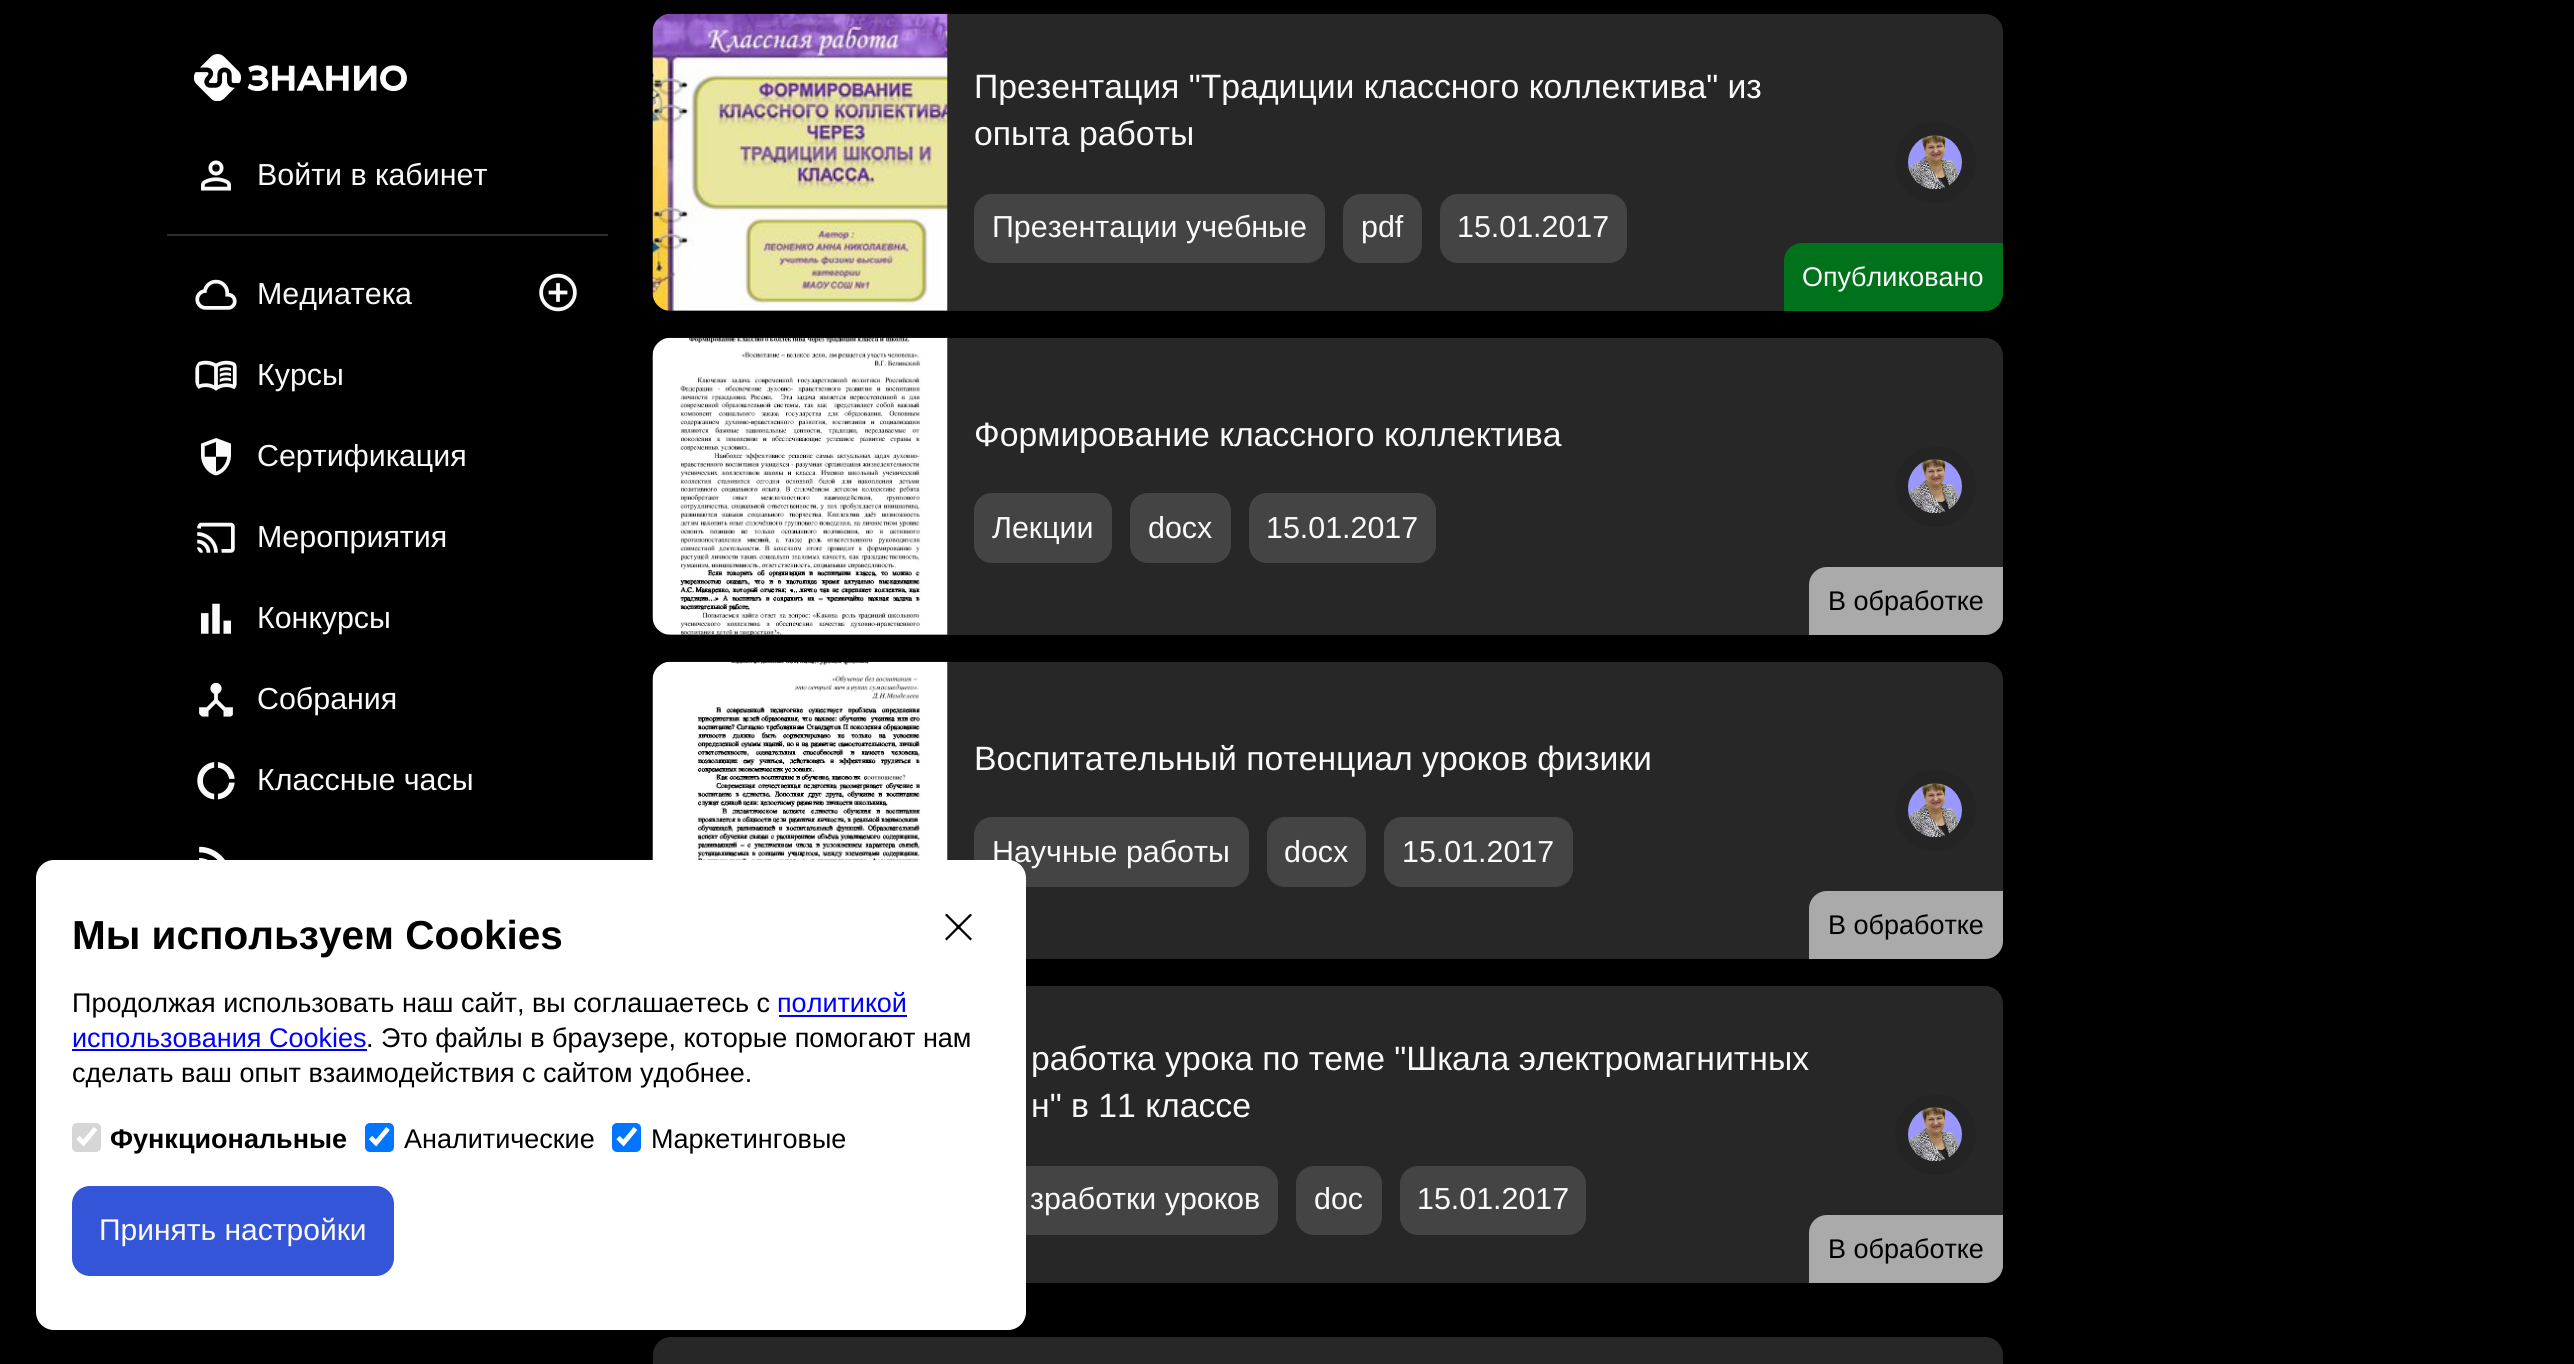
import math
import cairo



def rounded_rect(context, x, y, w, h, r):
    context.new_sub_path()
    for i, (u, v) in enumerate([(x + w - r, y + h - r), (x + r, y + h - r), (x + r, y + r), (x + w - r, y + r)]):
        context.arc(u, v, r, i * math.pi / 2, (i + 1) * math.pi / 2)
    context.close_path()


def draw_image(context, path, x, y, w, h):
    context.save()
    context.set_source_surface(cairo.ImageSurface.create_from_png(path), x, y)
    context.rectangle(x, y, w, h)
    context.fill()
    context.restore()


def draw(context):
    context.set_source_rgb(0, 0, 0)
    context.paint()
    draw_image(context, "images/1.png", 194, 54, 213, 47)
    draw_image(context, "images/2.png", 201, 160, 30, 31)
    context.set_source_rgb(46 / 255, 46 / 255, 46 / 255)
    context.rectangle(167, 234, 441, 2)
    context.fill()
    draw_image(context, "images/3.png", 195, 279, 42, 31)
    draw_image(context, "images/4.png", 539, 273, 38, 39)
    draw_image(context, "images/5.png", 195, 360, 42, 31)
    draw_image(context, "images/6.png", 201, 438, 30, 38)
    draw_image(context, "images/7.png", 197, 522, 38, 31)
    draw_image(context, "images/8.png", 201, 603, 30, 31)
    draw_image(context, "images/9.png", 199, 682, 34, 35)
    draw_image(context, "images/10.png", 197, 762, 38, 38)
    draw_image(context, "images/11.png", 199, 846, 26, 14)
    context.set_source_rgb(39 / 255, 39 / 255, 39 / 255)
    rounded_rect(context, 653, 14, 1350, 297, 18)
    context.fill()
    draw_image(context, "images/12.png", 652, 13, 296, 298)
    context.set_source_rgb(68 / 255, 68 / 255, 68 / 255)
    rounded_rect(context, 974, 194, 351, 69, 18)
    context.fill()
    rounded_rect(context, 1343, 194, 79, 69, 18)
    context.fill()
    rounded_rect(context, 1440, 194, 187, 69, 18)
    context.fill()
    context.set_source_rgb(36 / 255, 36 / 255, 36 / 255)
    context.arc(1935.5, 162.5, 40.5, 0, 2 * math.pi)
    context.fill()
    draw_image(context, "images/13.png", 1908, 135, 54, 55)
    context.set_source_rgb(0, 114 / 255, 28 / 255)
    context.new_path()
    context.move_to(1802, 243)
    context.line_to(2003, 243)
    context.line_to(2003, 293)
    context.curve_to(2003, 303, 1995, 311, 1985, 311)
    context.line_to(1784, 311)
    context.line_to(1784, 261)
    context.curve_to(1784, 251, 1792, 243, 1802, 243)
    context.close_path()
    context.fill()
    context.set_source_rgb(39 / 255, 39 / 255, 39 / 255)
    rounded_rect(context, 653, 338, 1350, 297, 18)
    context.fill()
    draw_image(context, "images/14.png", 652, 337, 296, 298)
    context.set_source_rgb(68 / 255, 68 / 255, 68 / 255)
    rounded_rect(context, 974, 493, 138, 70, 18)
    context.fill()
    rounded_rect(context, 1130, 493, 101, 70, 18)
    context.fill()
    rounded_rect(context, 1249, 493, 187, 70, 18)
    context.fill()
    context.set_source_rgb(36 / 255, 36 / 255, 36 / 255)
    context.arc(1935.5, 486.5, 40.5, 0, 2 * math.pi)
    context.fill()
    draw_image(context, "images/15.png", 1908, 459, 54, 55)
    context.set_source_rgb(170 / 255, 170 / 255, 170 / 255)
    context.new_path()
    context.move_to(1827, 567)
    context.line_to(2003, 567)
    context.line_to(2003, 617)
    context.curve_to(2003, 627, 1995, 635, 1985, 635)
    context.line_to(1809, 635)
    context.line_to(1809, 585)
    context.curve_to(1809, 575, 1817, 567, 1827, 567)
    context.close_path()
    context.fill()
    context.set_source_rgb(39 / 255, 39 / 255, 39 / 255)
    rounded_rect(context, 653, 662, 1350, 297, 18)
    context.fill()
    draw_image(context, "images/16.png", 652, 661, 296, 199)
    context.set_source_rgb(68 / 255, 68 / 255, 68 / 255)
    rounded_rect(context, 974, 817, 275, 70, 18)
    context.fill()
    rounded_rect(context, 1267, 817, 99, 70, 18)
    context.fill()
    rounded_rect(context, 1384, 817, 189, 70, 18)
    context.fill()
    context.set_source_rgb(36 / 255, 36 / 255, 36 / 255)
    context.arc(1935.5, 810.5, 40.5, 0, 2 * math.pi)
    context.fill()
    draw_image(context, "images/13.png", 1908, 783, 54, 55)
    context.set_source_rgb(170 / 255, 170 / 255, 170 / 255)
    context.new_path()
    context.move_to(1827, 891)
    context.line_to(2003, 891)
    context.line_to(2003, 941)
    context.curve_to(2003, 951, 1995, 959, 1985, 959)
    context.line_to(1809, 959)
    context.line_to(1809, 909)
    context.curve_to(1809, 899, 1817, 891, 1827, 891)
    context.close_path()
    context.fill()
    context.set_source_rgb(39 / 255, 39 / 255, 39 / 255)
    rounded_rect(context, 653, 986, 1350, 297, 18)
    context.fill()
    context.set_source_rgb(68 / 255, 68 / 255, 68 / 255)
    rounded_rect(context, 974, 1166, 304, 69, 18)
    context.fill()
    rounded_rect(context, 1296, 1166, 86, 69, 18)
    context.fill()
    rounded_rect(context, 1400, 1166, 186, 69, 18)
    context.fill()
    context.set_source_rgb(36 / 255, 36 / 255, 36 / 255)
    context.arc(1935.5, 1134.5, 40.5, 0, 2 * math.pi)
    context.fill()
    draw_image(context, "images/13.png", 1908, 1107, 54, 55)
    context.set_source_rgb(170 / 255, 170 / 255, 170 / 255)
    context.new_path()
    context.move_to(1827, 1215)
    context.line_to(2003, 1215)
    context.line_to(2003, 1265)
    context.curve_to(2003, 1275, 1995, 1283, 1985, 1283)
    context.line_to(1809, 1283)
    context.line_to(1809, 1233)
    context.curve_to(1809, 1223, 1817, 1215, 1827, 1215)
    context.close_path()
    context.fill()
    context.set_source_rgb(39 / 255, 39 / 255, 39 / 255)
    rounded_rect(context, 653, 1337, 1350, 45, 18)
    context.fill()
    context.select_font_face("Liberation Sans")
    context.set_font_size(30.4)
    context.set_source_rgb(250 / 255, 250 / 255, 250 / 255)
    context.move_to(257, 185)
    context.show_text("Войти в кабинет")
    context.move_to(257, 304)
    context.show_text("Медиатека")
    context.move_to(257, 385)
    context.show_text("Курсы")
    context.move_to(257, 466)
    context.show_text("Сертификация")
    context.move_to(257, 547)
    context.show_text("Мероприятия")
    context.move_to(257, 628)
    context.show_text("Конкурсы")
    context.move_to(257, 709)
    context.show_text("Собрания")
    context.move_to(257, 790)
    context.show_text("Классные часы")
    context.set_font_size(33.75)
    context.move_to(974, 98)
    context.show_text("Презентация \"Традиции классного коллектива\" из")
    context.move_to(974, 145)
    context.show_text("опыта работы")
    context.set_font_size(30.4)
    context.move_to(992, 237)
    context.show_text("Презентации учебные")
    context.move_to(1361, 237)
    context.show_text("pdf")
    context.move_to(1457, 237)
    context.show_text("15.01.2017")
    context.set_font_size(27)
    context.move_to(1802, 286)
    context.show_text("Опубликовано")
    context.set_font_size(33.75)
    context.move_to(974, 446)
    context.show_text("Формирование классного коллектива")
    context.set_font_size(30.4)
    context.move_to(992, 538)
    context.show_text("Лекции")
    context.move_to(1148, 538)
    context.show_text("docx")
    context.move_to(1266, 538)
    context.show_text("15.01.2017")
    context.set_font_size(27)
    context.set_source_rgb(0, 0, 0)
    context.move_to(1828, 610)
    context.show_text("В обработке")
    context.set_font_size(33.75)
    context.set_source_rgb(250 / 255, 250 / 255, 250 / 255)
    context.move_to(974, 770)
    context.show_text("Воспитательный потенциал уроков физики")
    context.set_font_size(30.4)
    context.move_to(992, 862)
    context.show_text("Научные работы")
    context.move_to(1284, 862)
    context.show_text("docx")
    context.move_to(1402, 862)
    context.show_text("15.01.2017")
    context.set_font_size(27)
    context.set_source_rgb(0, 0, 0)
    context.move_to(1828, 934)
    context.show_text("В обработке")
    context.set_font_size(33.75)
    context.set_source_rgb(250 / 255, 250 / 255, 250 / 255)
    context.move_to(1031, 1070)
    context.show_text("работка урока по теме \"Шкала электромагнитных")
    context.move_to(1031, 1117)
    context.show_text("н\" в 11 классе")
    context.set_font_size(30.4)
    context.move_to(1030, 1209)
    context.show_text("зработки уроков")
    context.move_to(1314, 1209)
    context.show_text("doc")
    context.move_to(1417, 1209)
    context.show_text("15.01.2017")
    context.set_font_size(27)
    context.set_source_rgb(0, 0, 0)
    context.move_to(1828, 1258)
    context.show_text("В обработке")
    context.set_source_rgb(1, 1, 1)
    rounded_rect(context, 36, 860, 990, 470, 18)
    context.fill()
    context.select_font_face("Liberation Sans", cairo.FontSlant.NORMAL, cairo.FontWeight.BOLD)
    context.set_font_size(40.5)
    context.set_source_rgb(0, 0, 0)
    context.move_to(72, 949)
    context.show_text("Мы используем Cookies")
    draw_image(context, "images/17.png", 945, 914, 27, 27)
    context.select_font_face("Liberation Sans")
    context.set_font_size(27)
    context.move_to(72, 1012)
    context.show_text("Продолжая использовать наш сайт, вы соглашаетесь с")
    context.set_source_rgb(0, 0, 1)
    context.move_to(777, 1012)
    context.show_text("политикой")
    context.rectangle(779, 1015, 128, 2)
    context.fill()
    context.move_to(72, 1047)
    context.show_text("использования Cookies")
    context.rectangle(72, 1049, 295, 2)
    context.fill()
    context.set_source_rgb(0, 0, 0)
    context.move_to(366, 1047)
    context.show_text(". Это файлы в браузере, которые помогают нам")
    context.move_to(72, 1082)
    context.show_text("сделать ваш опыт взаимодействия с сайтом удобнее.")
    context.set_source_rgb(214 / 255, 214 / 255, 214 / 255)
    rounded_rect(context, 72, 1123, 29, 29, 5)
    context.fill()
    context.new_path()
    context.move_to(78, 1137.5)
    context.line_to(83.5, 1143)
    context.line_to(95.5, 1128.5)
    context.set_source_rgb(1, 1, 1)
    context.set_line_width(4.7)
    context.stroke()
    context.select_font_face("Liberation Sans", cairo.FontSlant.NORMAL, cairo.FontWeight.BOLD)
    context.set_source_rgb(0, 0, 0)
    context.move_to(110, 1148)
    context.show_text("Функциональные")
    context.set_source_rgb(0, 117 / 255, 1)
    rounded_rect(context, 365, 1123, 29, 29, 5)
    context.fill()
    context.new_path()
    context.move_to(370.5, 1137.5)
    context.line_to(376, 1143)
    context.line_to(388, 1128.5)
    context.set_source_rgb(1, 1, 1)
    context.stroke()
    context.select_font_face("Liberation Sans")
    context.set_source_rgb(0, 0, 0)
    context.move_to(404, 1148)
    context.show_text("Аналитические")
    context.set_source_rgb(0, 117 / 255, 1)
    rounded_rect(context, 612, 1123, 29, 29, 5)
    context.fill()
    context.new_path()
    context.move_to(618, 1137.5)
    context.line_to(623.5, 1143)
    context.line_to(635.5, 1128.5)
    context.set_source_rgb(1, 1, 1)
    context.stroke()
    context.set_source_rgb(0, 0, 0)
    context.move_to(651, 1148)
    context.show_text("Маркетинговые")
    context.set_source_rgb(53 / 255, 85 / 255, 217 / 255)
    rounded_rect(context, 72, 1186, 322, 90, 18)
    context.fill()
    context.set_font_size(30)
    context.set_source_rgb(250 / 255, 250 / 255, 250 / 255)
    context.move_to(99, 1240)
    context.show_text("Принять настройки")


surface = cairo.ImageSurface(cairo.Format.RGB24, 2574, 1364)
context = cairo.Context(surface)
options = cairo.FontOptions()
options.set_hint_metrics(cairo.HintMetrics.OFF)
options.set_hint_style(cairo.HintStyle.NONE)
context.set_font_options(options)
context.set_miter_limit(4)
draw(context)
surface.write_to_png("out.png")
